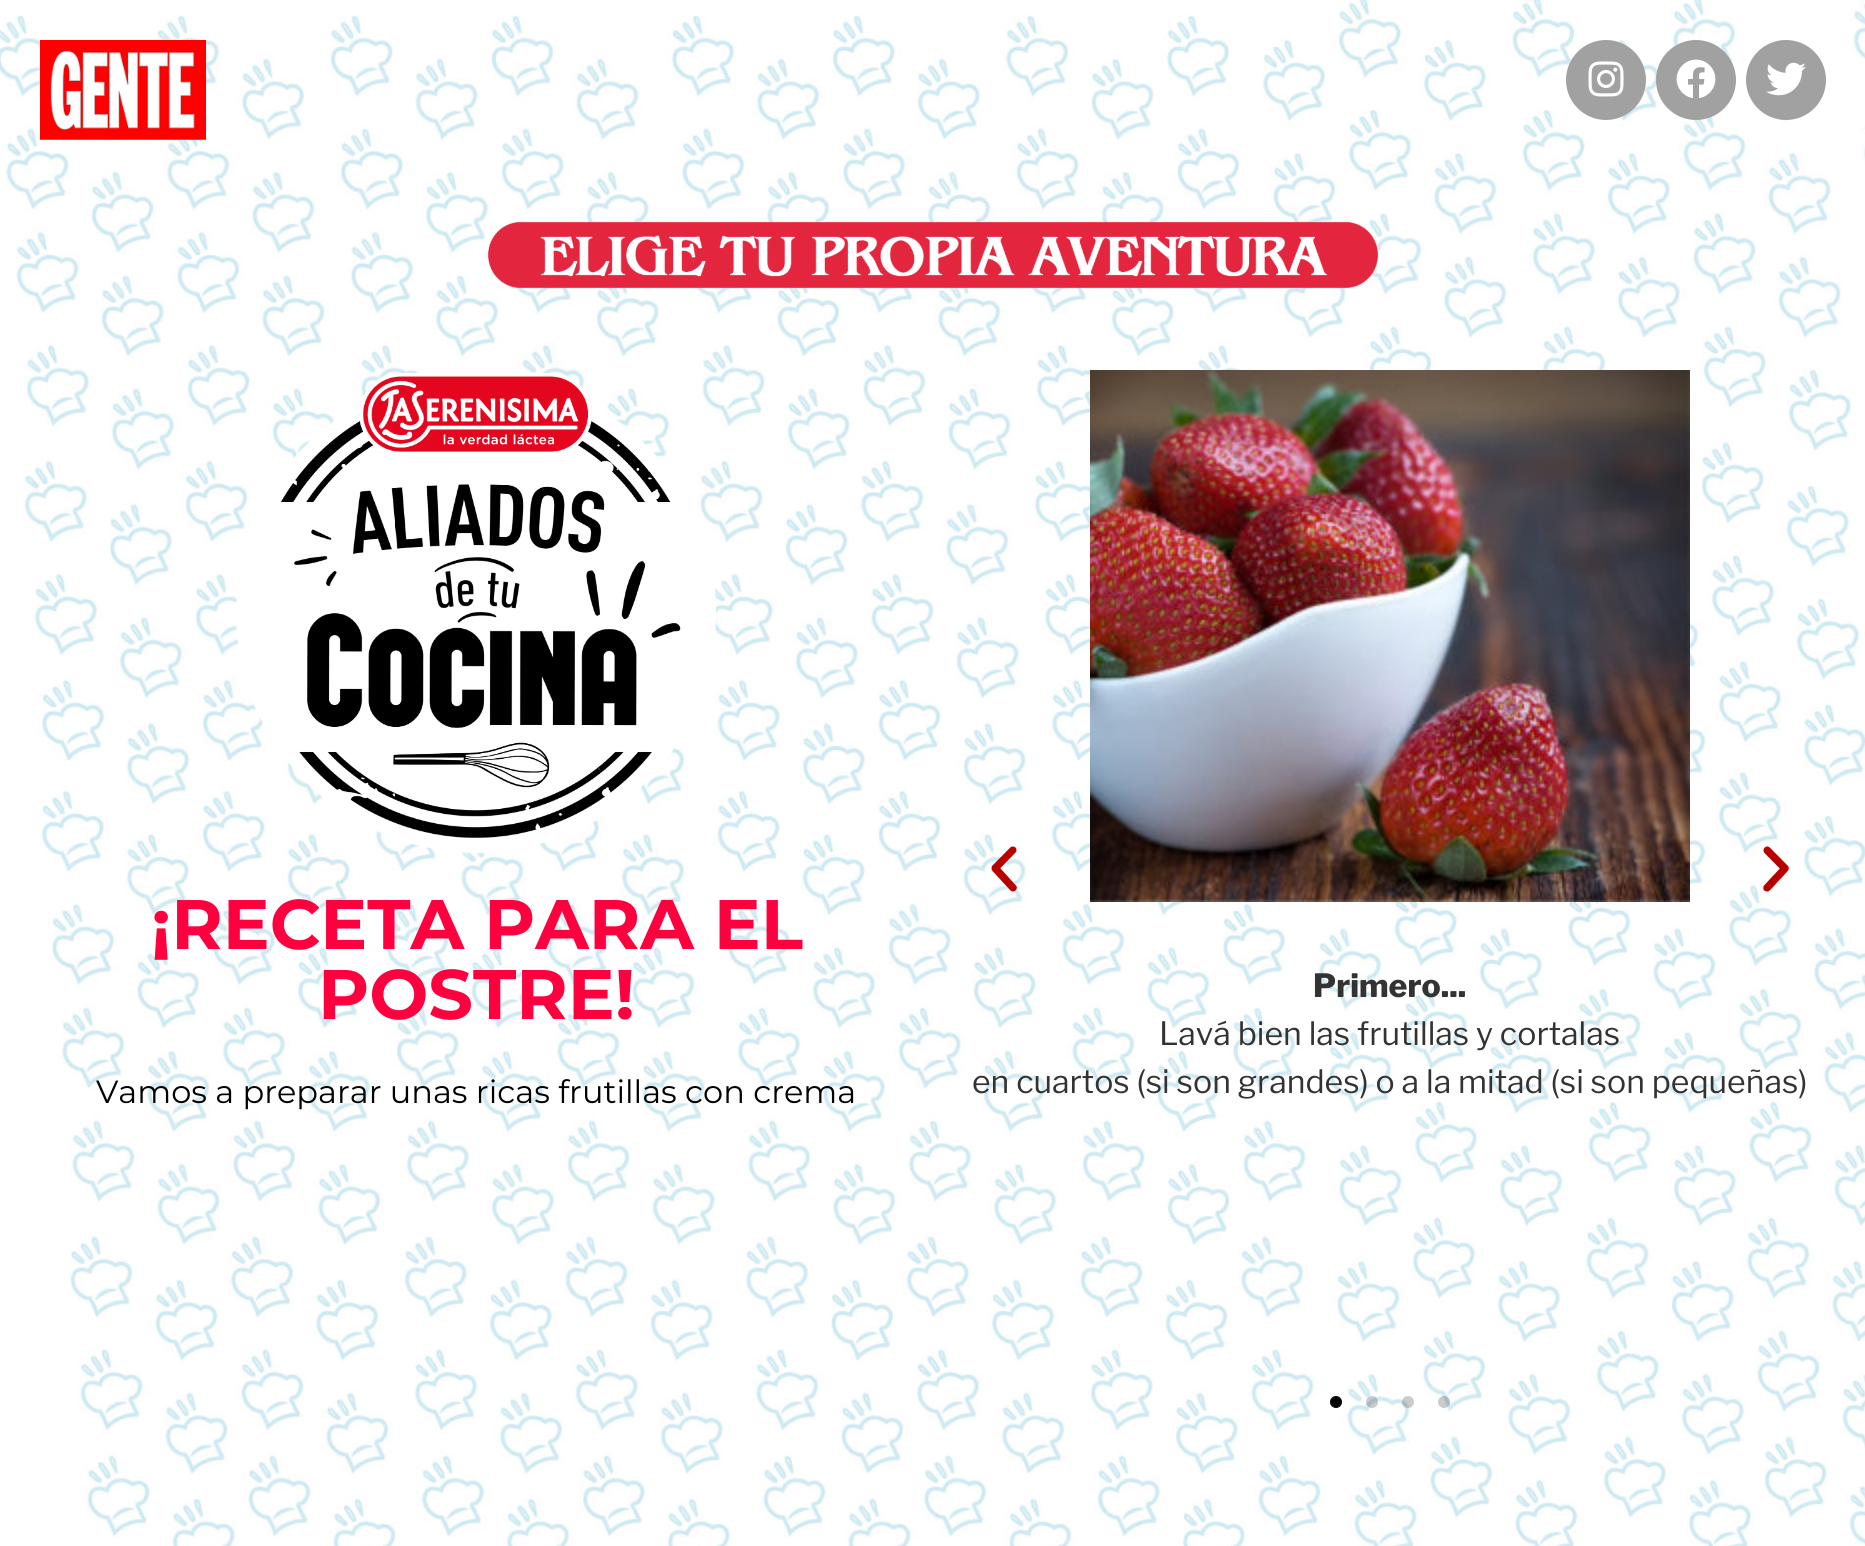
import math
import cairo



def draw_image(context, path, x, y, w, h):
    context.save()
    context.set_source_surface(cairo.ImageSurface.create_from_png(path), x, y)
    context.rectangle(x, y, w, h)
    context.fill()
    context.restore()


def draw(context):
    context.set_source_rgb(1, 1, 1)
    context.paint()
    draw_image(context, "images/1.png", 0, 0, 1865, 1546)
    draw_image(context, "images/2.png", 40, 40, 166, 100)
    context.set_source_rgb(161 / 255, 161 / 255, 161 / 255)
    context.arc(1606, 80, 40, 0, 2 * math.pi)
    context.fill()
    draw_image(context, "images/3.png", 1588, 61, 36, 36)
    context.arc(1696, 80, 40, 0, 2 * math.pi)
    context.fill()
    draw_image(context, "images/4.png", 1676, 59, 40, 40)
    context.arc(1786, 80, 40, 0, 2 * math.pi)
    context.fill()
    draw_image(context, "images/5.png", 1766, 62, 40, 34)
    draw_image(context, "images/6.png", 488, 221, 891, 68)
    draw_image(context, "images/7.png", 236, 373, 480, 480)
    draw_image(context, "images/8.png", 991, 846, 26, 46)
    draw_image(context, "images/9.png", 1763, 846, 26, 46)
    draw_image(context, "images/10.png", 1090, 370, 600, 532)
    context.set_source_rgb(0, 0, 0)
    context.arc(1336, 1402, 6, 0, 2 * math.pi)
    context.fill()
    context.set_source_rgba(0, 0, 0, 0.2)
    context.arc(1372, 1402, 6, 0, 2 * math.pi)
    context.fill()
    context.arc(1408, 1402, 6, 0, 2 * math.pi)
    context.fill()
    context.arc(1444, 1402, 6, 0, 2 * math.pi)
    context.fill()
    context.select_font_face("Montserrat", cairo.FontSlant.NORMAL, cairo.FontWeight.BOLD)
    context.set_font_size(70)
    context.set_source_rgb(1, 0, 63 / 255)
    context.move_to(151, 949)
    context.show_text("¡RECETA PARA EL")
    context.move_to(318, 1019)
    context.show_text("POSTRE!")
    context.select_font_face("Montserrat")
    context.set_font_size(32)
    context.set_source_rgb(0, 0, 0)
    context.move_to(96, 1103)
    context.show_text("Vamos a preparar unas ricas frutillas con crema")
    context.select_font_face("Libre Franklin Thin")
    context.set_source_rgb(51 / 255, 51 / 255, 51 / 255)
    context.move_to(1313, 997)
    context.show_text("Primero...")
    context.select_font_face("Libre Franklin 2 Thin")
    context.move_to(1159, 1045)
    context.show_text("Lavá bien las frutillas y cortalas")
    context.move_to(972, 1093)
    context.show_text("en cuartos (si son grandes) o a la mitad (si son pequeñas)")


surface = cairo.ImageSurface(cairo.Format.RGB24, 1865, 1546)
context = cairo.Context(surface)
options = cairo.FontOptions()
options.set_hint_metrics(cairo.HintMetrics.OFF)
options.set_hint_style(cairo.HintStyle.NONE)
context.set_font_options(options)
context.set_miter_limit(4)
draw(context)
surface.write_to_png("out.png")
